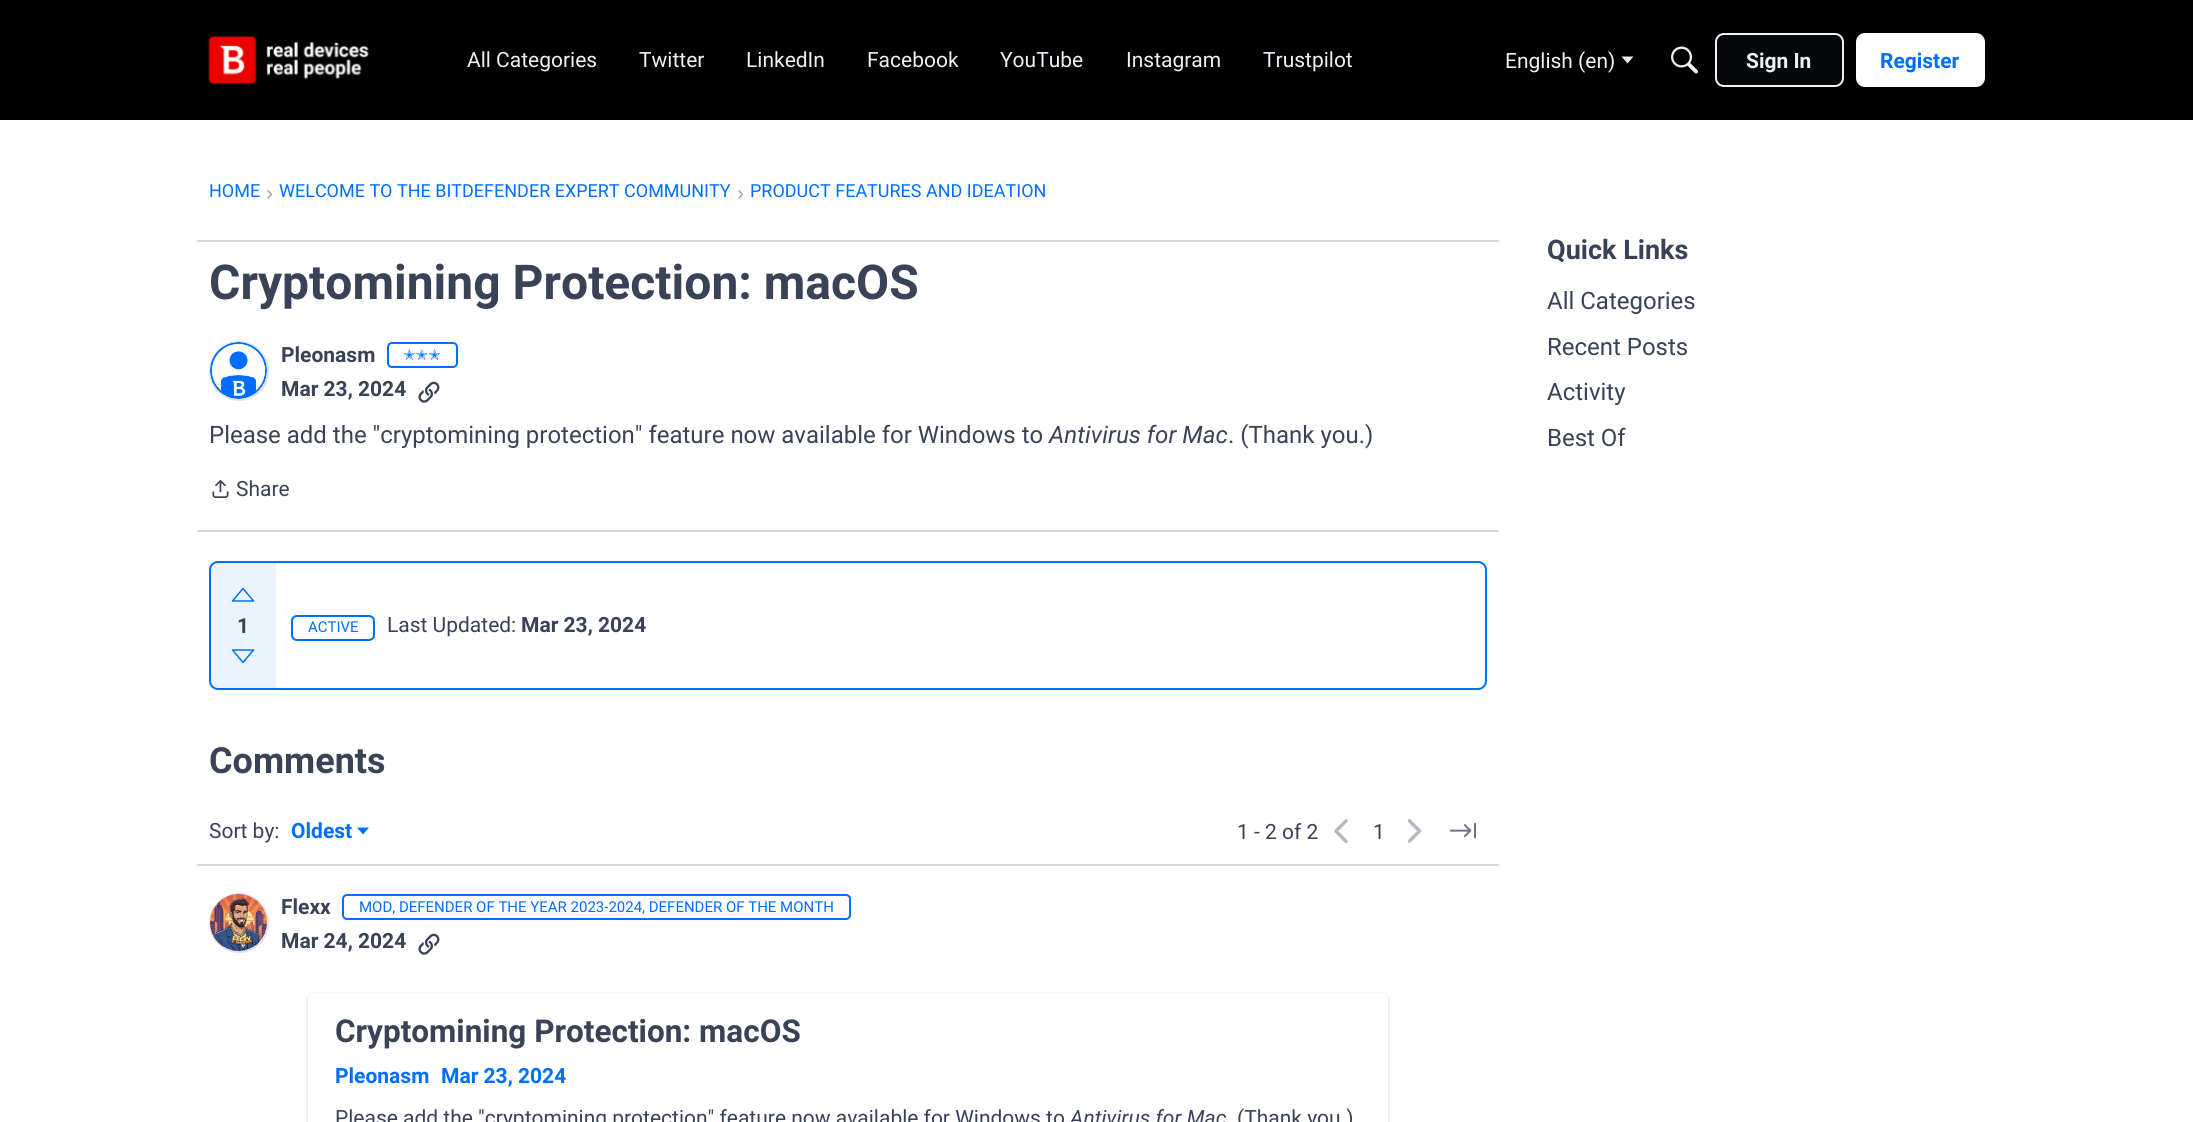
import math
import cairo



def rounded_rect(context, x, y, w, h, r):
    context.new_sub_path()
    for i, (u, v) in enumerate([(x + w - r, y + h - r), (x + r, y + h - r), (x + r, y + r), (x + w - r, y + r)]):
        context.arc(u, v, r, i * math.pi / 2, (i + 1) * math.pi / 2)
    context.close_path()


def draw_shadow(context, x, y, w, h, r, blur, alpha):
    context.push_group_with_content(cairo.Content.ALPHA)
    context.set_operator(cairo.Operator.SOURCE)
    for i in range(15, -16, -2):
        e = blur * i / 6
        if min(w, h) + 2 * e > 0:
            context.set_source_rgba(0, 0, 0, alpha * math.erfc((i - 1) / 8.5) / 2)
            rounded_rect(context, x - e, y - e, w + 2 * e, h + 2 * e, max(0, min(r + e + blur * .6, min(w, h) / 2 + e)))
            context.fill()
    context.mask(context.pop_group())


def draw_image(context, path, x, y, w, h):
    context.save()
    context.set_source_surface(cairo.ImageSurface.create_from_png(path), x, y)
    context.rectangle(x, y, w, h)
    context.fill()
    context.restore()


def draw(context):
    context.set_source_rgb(1, 1, 1)
    context.paint()
    context.set_source_rgb(0, 0, 0)
    context.rectangle(0, 0, 2193, 120)
    context.fill()
    draw_image(context, "images/1.png", 208, 36, 161, 48)
    context.set_source_rgb(239 / 255, 241 / 255, 249 / 255)
    context.new_path()
    context.move_to(1621.5, 56.5)
    context.line_to(1633.5, 56.5)
    context.line_to(1627.5, 63.5)
    context.close_path()
    context.fill()
    draw_image(context, "images/2.png", 1671, 46, 27, 28)
    context.set_source_rgb(6 / 255, 7 / 255, 9 / 255)
    rounded_rect(context, 1716, 34, 127, 52, 8)
    context.fill_preserve()
    context.set_source_rgb(239 / 255, 241 / 255, 249 / 255)
    context.stroke()
    context.set_source_rgb(1, 1, 1)
    rounded_rect(context, 1857, 34, 127, 52, 8)
    context.fill_preserve()
    context.stroke()
    context.set_source_rgb(215 / 255, 217 / 255, 221 / 255)
    context.rectangle(197, 240, 1302, 2)
    context.fill()
    context.arc(239, 371, 29, 0, 2 * math.pi)
    context.set_source_rgb(225 / 255, 227 / 255, 230 / 255)
    context.stroke()
    draw_image(context, "images/3.png", 210, 342, 57, 57)
    rounded_rect(context, 388, 343, 69, 24, 4)
    context.set_source_rgb(0, 110 / 255, 1)
    context.stroke()
    draw_image(context, "images/4.png", 418, 381, 22, 22)
    draw_image(context, "images/5.png", 212, 480, 17, 18)
    context.set_source_rgb(215 / 255, 217 / 255, 221 / 255)
    context.rectangle(197, 530, 1302, 2)
    context.fill()
    rounded_rect(context, 210, 562, 1276, 127, 8)
    context.set_source_rgb(0, 110 / 255, 1)
    context.stroke()
    context.set_source_rgba(0, 110 / 255, 1, 0.08)
    context.new_path()
    context.move_to(219, 563)
    context.line_to(276, 563)
    context.line_to(276, 689)
    context.line_to(219, 689)
    context.curve_to(214, 689, 210, 685, 210, 680)
    context.line_to(210, 572)
    context.curve_to(210, 567, 214, 563, 219, 563)
    context.close_path()
    context.fill()
    context.new_path()
    context.move_to(232.5, 601)
    context.line_to(243, 588.5)
    context.line_to(253.5, 601)
    context.close_path()
    context.set_source_rgb(0, 110 / 255, 1)
    context.set_line_width(1.5)
    context.set_line_join(cairo.LineJoin.ROUND)
    context.stroke()
    context.new_path()
    context.move_to(253.5, 650)
    context.line_to(243, 662.5)
    context.line_to(232.5, 650)
    context.close_path()
    context.stroke()
    rounded_rect(context, 292, 616, 82, 24, 5)
    context.set_line_width(2)
    context.set_line_join(cairo.LineJoin.MITER)
    context.stroke()
    context.new_path()
    context.move_to(357, 827.5)
    context.line_to(369, 827.5)
    context.line_to(363, 834.5)
    context.close_path()
    context.fill()
    draw_image(context, "images/6.png", 1334, 819, 14, 25)
    draw_image(context, "images/7.png", 1407, 819, 15, 24)
    draw_image(context, "images/8.png", 1449, 822, 27, 17)
    context.set_source_rgb(215 / 255, 217 / 255, 221 / 255)
    context.rectangle(197, 864, 1302, 2)
    context.fill()
    context.arc(239, 923, 29, 0, 2 * math.pi)
    context.set_source_rgb(225 / 255, 227 / 255, 230 / 255)
    context.stroke()
    draw_image(context, "images/9.png", 210, 894, 57, 57)
    rounded_rect(context, 343, 895, 507, 24, 4)
    context.set_source_rgb(0, 110 / 255, 1)
    context.stroke()
    draw_image(context, "images/4.png", 418, 933, 22, 22)
    context.set_source_rgb(0, 0, 0)
    draw_shadow(context, 308, 995, 1080, 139, 6, 2, 0.22)
    context.set_source_rgb(1, 1, 1)
    rounded_rect(context, 308, 993, 1080, 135, 6)
    context.fill()
    context.select_font_face("Roboto")
    context.set_font_size(21)
    context.set_source_rgb(239 / 255, 241 / 255, 249 / 255)
    context.move_to(467, 67)
    context.show_text("All Categories")
    context.move_to(639, 67)
    context.show_text("Twitter")
    context.move_to(746, 67)
    context.show_text("LinkedIn")
    context.move_to(867, 67)
    context.show_text("Facebook")
    context.move_to(1000, 67)
    context.show_text("YouTube")
    context.move_to(1126, 67)
    context.show_text("Instagram")
    context.move_to(1263, 67)
    context.show_text("Trustpilot")
    context.move_to(1505, 68)
    context.show_text("English (en)")
    context.select_font_face("Roboto", cairo.FontSlant.NORMAL, cairo.FontWeight.BOLD)
    context.move_to(1746, 68)
    context.show_text("Sign In")
    context.set_source_rgb(0, 110 / 255, 1)
    context.move_to(1880, 68)
    context.show_text("Register")
    context.select_font_face("Roboto")
    context.set_font_size(18)
    context.move_to(209, 197)
    context.show_text("HOME")
    context.select_font_face("Liberation Sans")
    context.set_font_size(21)
    context.set_source_rgb(156 / 255, 161 / 255, 171 / 255)
    context.move_to(266, 200)
    context.show_text("›")
    context.select_font_face("Roboto")
    context.set_font_size(18)
    context.set_source_rgb(0, 110 / 255, 1)
    context.move_to(279, 197)
    context.show_text("WELCOME TO THE BITDEFENDER EXPERT COMMUNITY")
    context.select_font_face("Liberation Sans")
    context.set_font_size(21)
    context.set_source_rgb(156 / 255, 161 / 255, 171 / 255)
    context.move_to(737, 200)
    context.show_text("›")
    context.select_font_face("Roboto")
    context.set_font_size(18)
    context.set_source_rgb(0, 110 / 255, 1)
    context.move_to(750, 197)
    context.show_text("PRODUCT FEATURES AND IDEATION")
    context.select_font_face("Roboto", cairo.FontSlant.NORMAL, cairo.FontWeight.BOLD)
    context.set_font_size(48)
    context.set_source_rgb(56 / 255, 67 / 255, 87 / 255)
    context.move_to(209, 299)
    context.show_text("Cryptomining Protection: macOS")
    context.set_font_size(21)
    context.move_to(281, 362)
    context.show_text("Pleonasm")
    context.select_font_face("DejaVu Sans")
    context.set_font_size(15)
    context.set_source_rgb(0, 110 / 255, 1)
    context.move_to(403, 360)
    context.show_text("✭✭✭")
    context.select_font_face("Roboto", cairo.FontSlant.NORMAL, cairo.FontWeight.BOLD)
    context.set_font_size(21)
    context.set_source_rgb(56 / 255, 67 / 255, 87 / 255)
    context.move_to(281, 396)
    context.show_text("Mar 23, 2024")
    context.select_font_face("Roboto")
    context.set_font_size(24)
    context.move_to(209, 443)
    context.show_text("Please add the \"cryptomining protection\" feature now available for Windows to")
    context.select_font_face("Roboto", cairo.FontSlant.ITALIC)
    context.move_to(1049, 443)
    context.show_text("Antivirus for Mac")
    context.select_font_face("Roboto")
    context.move_to(1228, 443)
    context.show_text(". (Thank you.)")
    context.set_font_size(21)
    context.move_to(236, 496)
    context.show_text("Share")
    context.select_font_face("Roboto", cairo.FontSlant.NORMAL, cairo.FontWeight.BOLD)
    context.move_to(237, 633)
    context.show_text("1")
    context.select_font_face("Roboto")
    context.set_font_size(15)
    context.set_source_rgb(0, 110 / 255, 1)
    context.move_to(308, 632)
    context.show_text("ACTIVE")
    context.set_font_size(21)
    context.set_source_rgb(56 / 255, 67 / 255, 87 / 255)
    context.move_to(387, 632)
    context.show_text("Last Updated:")
    context.select_font_face("Roboto", cairo.FontSlant.NORMAL, cairo.FontWeight.BOLD)
    context.move_to(521, 632)
    context.show_text("Mar 23, 2024")
    context.set_font_size(36)
    context.move_to(209, 773)
    context.show_text("Comments")
    context.select_font_face("Roboto")
    context.set_font_size(21)
    context.move_to(209, 838)
    context.show_text("Sort by:")
    context.select_font_face("Roboto", cairo.FontSlant.NORMAL, cairo.FontWeight.BOLD)
    context.set_source_rgb(0, 110 / 255, 1)
    context.move_to(291, 838)
    context.show_text("Oldest")
    context.select_font_face("Roboto")
    context.set_source_rgb(56 / 255, 67 / 255, 87 / 255)
    context.move_to(1237, 839)
    context.show_text("1 - 2 of 2")
    context.move_to(1373, 839)
    context.show_text("1")
    context.select_font_face("Roboto", cairo.FontSlant.NORMAL, cairo.FontWeight.BOLD)
    context.move_to(281, 914)
    context.show_text("Flexx")
    context.select_font_face("Roboto")
    context.set_font_size(15)
    context.set_source_rgb(0, 110 / 255, 1)
    context.move_to(359, 912)
    context.show_text("MOD, DEFENDER OF THE YEAR 2023-2024, DEFENDER OF THE MONTH")
    context.select_font_face("Roboto", cairo.FontSlant.NORMAL, cairo.FontWeight.BOLD)
    context.set_font_size(21)
    context.set_source_rgb(56 / 255, 67 / 255, 87 / 255)
    context.move_to(281, 948)
    context.show_text("Mar 24, 2024")
    context.set_font_size(31.5)
    context.move_to(335, 1042)
    context.show_text("Cryptomining Protection: macOS")
    context.set_font_size(21)
    context.set_source_rgb(0, 110 / 255, 1)
    context.move_to(335, 1083)
    context.show_text("Pleonasm")
    context.move_to(441, 1083)
    context.show_text("Mar 23, 2024")
    context.select_font_face("Roboto")
    context.set_source_rgb(56 / 255, 67 / 255, 87 / 255)
    context.move_to(335, 1125)
    context.show_text("Please add the \"cryptomining protection\" feature now available for Windows to")
    context.select_font_face("Roboto", cairo.FontSlant.ITALIC)
    context.move_to(1070, 1125)
    context.show_text("Antivirus for Mac")
    context.select_font_face("Roboto")
    context.move_to(1237, 1125)
    context.show_text("(Thank you.)")
    context.select_font_face("Roboto", cairo.FontSlant.NORMAL, cairo.FontWeight.BOLD)
    context.set_font_size(27)
    context.move_to(1547, 259)
    context.show_text("Quick Links")
    context.select_font_face("Roboto")
    context.set_font_size(24)
    context.move_to(1547, 309)
    context.show_text("All Categories")
    context.move_to(1547, 355)
    context.show_text("Recent Posts")
    context.move_to(1547, 400)
    context.show_text("Activity")
    context.move_to(1547, 446)
    context.show_text("Best Of")


surface = cairo.ImageSurface(cairo.Format.RGB24, 2193, 1122)
context = cairo.Context(surface)
options = cairo.FontOptions()
options.set_hint_metrics(cairo.HintMetrics.OFF)
options.set_hint_style(cairo.HintStyle.NONE)
context.set_font_options(options)
context.set_miter_limit(4)
draw(context)
surface.write_to_png("out.png")
